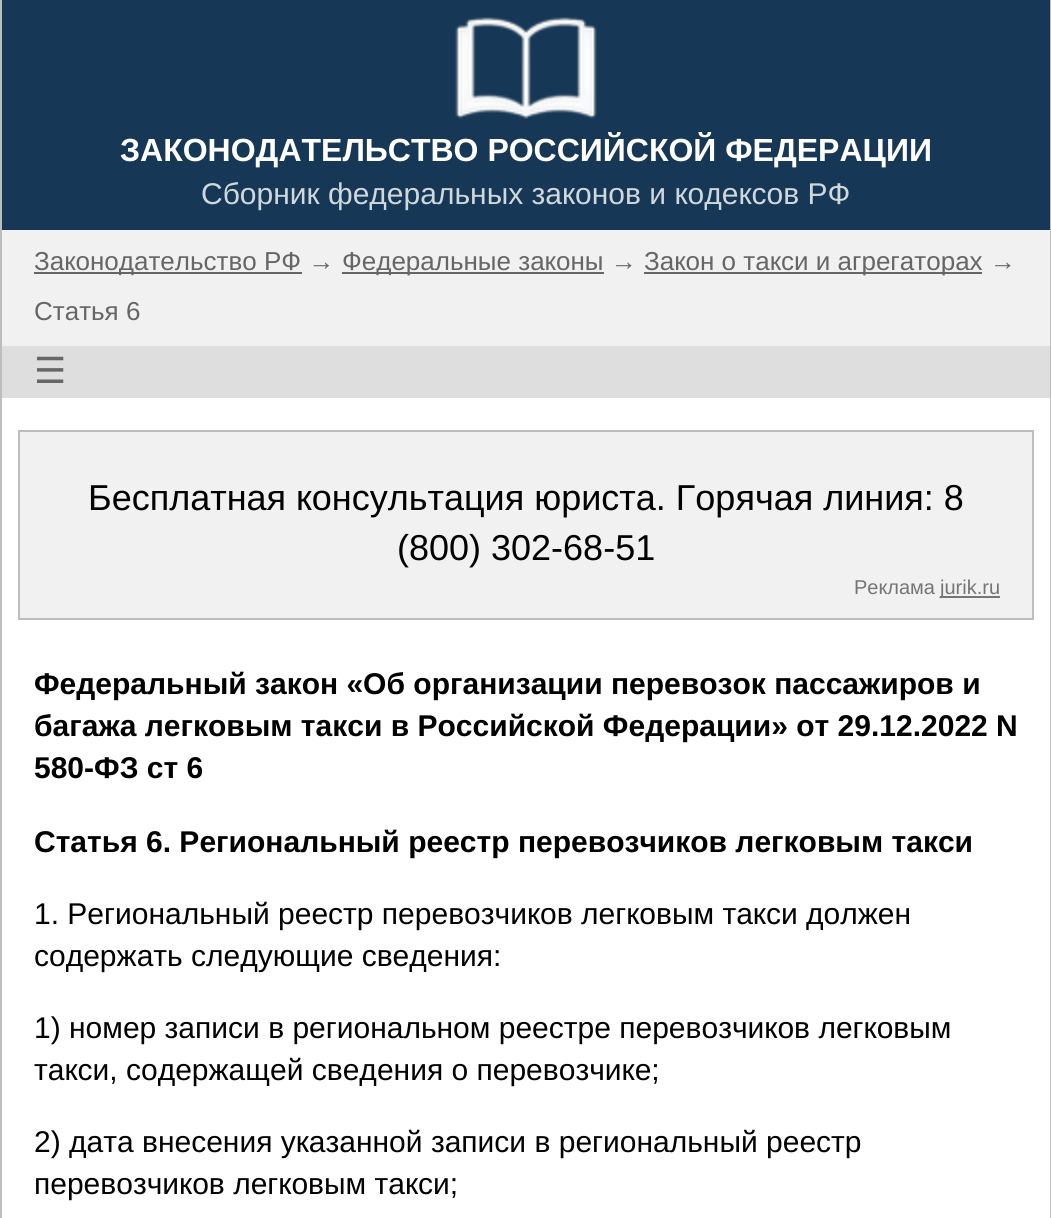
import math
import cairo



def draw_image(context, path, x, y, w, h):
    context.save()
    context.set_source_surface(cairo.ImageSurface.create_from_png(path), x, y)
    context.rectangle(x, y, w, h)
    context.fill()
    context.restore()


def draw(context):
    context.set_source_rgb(1, 1, 1)
    context.paint()
    context.set_source_rgb(189 / 255, 189 / 255, 189 / 255)
    context.rectangle(1050, 0, 1, 1218)
    context.fill()
    context.rectangle(0, 0, 2, 1218)
    context.fill()
    context.set_source_rgb(22 / 255, 55 / 255, 85 / 255)
    context.rectangle(2, 0, 1048, 230)
    context.fill()
    draw_image(context, "images/1.png", 455, 17, 142, 102)
    context.set_source_rgb(241 / 255, 241 / 255, 241 / 255)
    context.rectangle(2, 230, 1048, 116)
    context.fill()
    context.set_source_rgb(222 / 255, 222 / 255, 222 / 255)
    context.rectangle(2, 346, 1048, 52)
    context.fill()
    context.set_source_rgb(102 / 255, 102 / 255, 102 / 255)
    context.rectangle(34, 272, 268, 2)
    context.fill()
    context.rectangle(342, 272, 262, 2)
    context.fill()
    context.rectangle(644, 272, 338, 2)
    context.fill()
    context.set_source_rgb(241 / 255, 241 / 255, 241 / 255)
    context.rectangle(19, 431, 1014, 188)
    context.fill_preserve()
    context.set_source_rgb(189 / 255, 189 / 255, 189 / 255)
    context.stroke()
    context.set_source_rgb(117 / 255, 117 / 255, 117 / 255)
    context.rectangle(940, 596, 60, 2)
    context.fill()
    context.select_font_face("Liberation Sans", cairo.FontSlant.NORMAL, cairo.FontWeight.BOLD)
    context.set_font_size(32)
    context.set_source_rgb(1, 1, 1)
    context.move_to(120, 161)
    context.show_text("ЗАКОНОДАТЕЛЬСТВО РОССИЙСКОЙ ФЕДЕРАЦИИ")
    context.select_font_face("Liberation Sans")
    context.set_font_size(30)
    context.set_source_rgb(207 / 255, 216 / 255, 220 / 255)
    context.move_to(201, 204)
    context.show_text("Сборник федеральных законов и кодексов РФ")
    context.set_font_size(26)
    context.set_source_rgb(102 / 255, 102 / 255, 102 / 255)
    context.move_to(34, 270)
    context.show_text("Законодательство РФ →")
    context.move_to(342, 270)
    context.show_text("Федеральные законы →")
    context.move_to(644, 270)
    context.show_text("Закон о такси и агрегаторах →")
    context.move_to(34, 320)
    context.show_text("Статья 6")
    context.select_font_face("DejaVu Sans")
    context.set_font_size(36)
    context.move_to(34, 383)
    context.show_text("☰")
    context.select_font_face("Liberation Sans")
    context.set_source_rgb(0, 0, 0)
    context.move_to(88, 510)
    context.show_text("Бесплатная консультация юриста. Горячая линия: 8")
    context.move_to(397, 560)
    context.show_text("(800) 302-68-51")
    context.set_font_size(20)
    context.set_source_rgb(117 / 255, 117 / 255, 117 / 255)
    context.move_to(854, 594)
    context.show_text("Реклама")
    context.move_to(940, 594)
    context.show_text("jurik.ru")
    context.select_font_face("Liberation Sans", cairo.FontSlant.NORMAL, cairo.FontWeight.BOLD)
    context.set_font_size(30)
    context.set_source_rgb(0, 0, 0)
    context.move_to(34, 694)
    context.show_text("Федеральный закон «Об организации перевозок пассажиров и")
    context.move_to(34, 736)
    context.show_text("багажа легковым такси в Российской Федерации» от 29.12.2022 N")
    context.move_to(34, 778)
    context.show_text("580-ФЗ ст 6")
    context.move_to(34, 852)
    context.show_text("Статья 6. Региональный реестр перевозчиков легковым такси")
    context.select_font_face("Liberation Sans")
    context.move_to(34, 924)
    context.show_text("1. Региональный реестр перевозчиков легковым такси должен")
    context.move_to(34, 966)
    context.show_text("содержать следующие сведения:")
    context.move_to(34, 1038)
    context.show_text("1) номер записи в региональном реестре перевозчиков легковым")
    context.move_to(34, 1080)
    context.show_text("такси, содержащей сведения о перевозчике;")
    context.move_to(34, 1152)
    context.show_text("2) дата внесения указанной записи в региональный реестр")
    context.move_to(34, 1194)
    context.show_text("перевозчиков легковым такси;")


surface = cairo.ImageSurface(cairo.Format.RGB24, 1051, 1218)
context = cairo.Context(surface)
options = cairo.FontOptions()
options.set_hint_metrics(cairo.HintMetrics.OFF)
options.set_hint_style(cairo.HintStyle.NONE)
context.set_font_options(options)
context.set_miter_limit(4)
draw(context)
surface.write_to_png("out.png")
